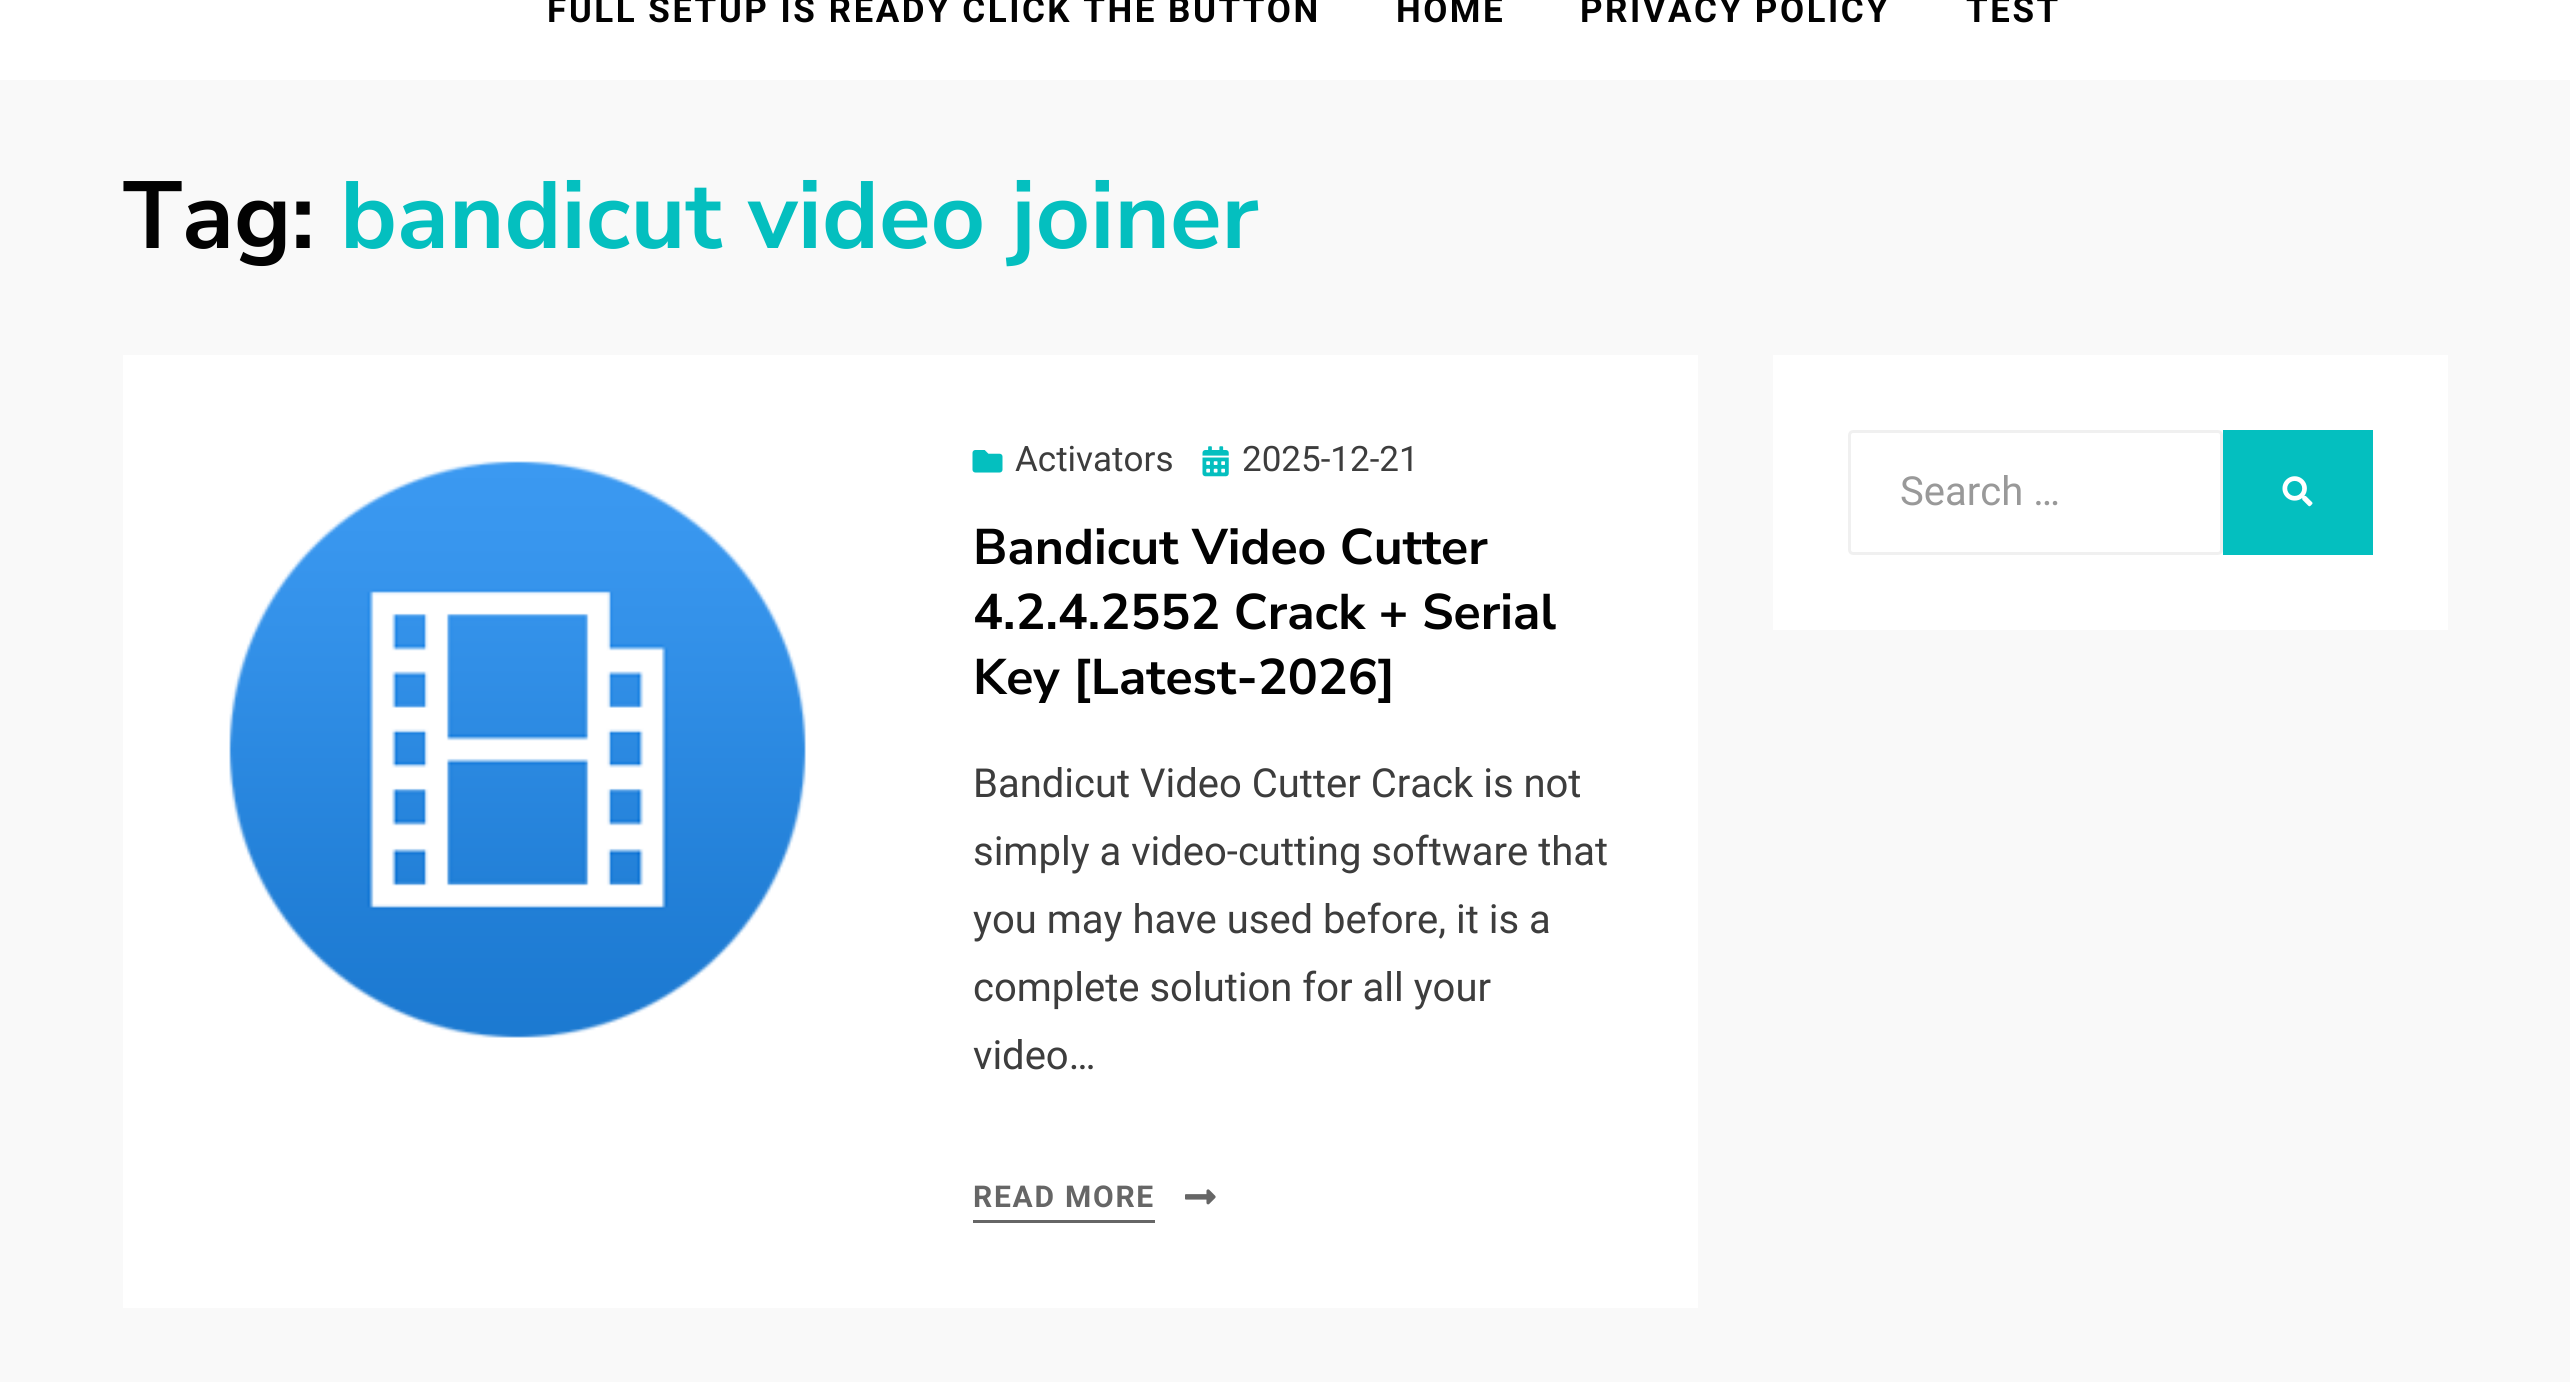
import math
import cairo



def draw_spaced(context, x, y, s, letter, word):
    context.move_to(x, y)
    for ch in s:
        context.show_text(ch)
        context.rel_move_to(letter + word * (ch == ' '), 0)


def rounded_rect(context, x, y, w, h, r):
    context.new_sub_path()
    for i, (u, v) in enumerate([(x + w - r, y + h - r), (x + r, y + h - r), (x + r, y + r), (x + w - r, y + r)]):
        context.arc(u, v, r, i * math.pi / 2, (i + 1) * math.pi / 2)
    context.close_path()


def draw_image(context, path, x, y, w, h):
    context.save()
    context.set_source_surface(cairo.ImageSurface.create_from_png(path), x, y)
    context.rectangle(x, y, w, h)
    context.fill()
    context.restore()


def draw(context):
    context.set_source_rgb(249 / 255, 249 / 255, 249 / 255)
    context.paint()
    context.set_source_rgb(1, 1, 1)
    context.rectangle(0, 0, 2570, 80)
    context.fill()
    context.rectangle(123, 355, 1575, 953)
    context.fill()
    draw_image(context, "images/1.png", 229, 461, 577, 577)
    draw_image(context, "images/2.png", 972, 450, 31, 23)
    draw_image(context, "images/3.png", 1202, 446, 27, 31)
    draw_image(context, "images/4.png", 1185, 1189, 31, 16)
    context.set_source_rgb(102 / 255, 102 / 255, 102 / 255)
    context.rectangle(973, 1220, 182, 3)
    context.fill()
    context.set_source_rgb(1, 1, 1)
    context.rectangle(1773, 355, 675, 275)
    context.fill()
    rounded_rect(context, 1849.5, 431.5, 372, 122, 3.5)
    context.set_source_rgb(240 / 255, 240 / 255, 240 / 255)
    context.set_line_width(3)
    context.stroke()
    context.set_source_rgb(4 / 255, 191 / 255, 191 / 255)
    context.rectangle(2223, 430, 150, 125)
    context.fill()
    draw_image(context, "images/5.png", 2282, 476, 31, 31)
    context.select_font_face("Roboto", cairo.FontSlant.NORMAL, cairo.FontWeight.BOLD)
    context.set_font_size(35)
    context.set_source_rgb(2 / 255, 2 / 255, 2 / 255)
    draw_spaced(context, 547, 22, "FULL SETUP IS READY CLICK THE BUTTON", 2.5, 0)
    draw_spaced(context, 1396, 22, "HOME", 2.5, 0)
    draw_spaced(context, 1580, 22, "PRIVACY POLICY", 2.5, 0)
    draw_spaced(context, 1966, 22, "TEST", 2.5, 0)
    context.select_font_face("Nunito Sans", cairo.FontSlant.NORMAL, cairo.FontWeight.BOLD)
    context.set_font_size(95)
    context.move_to(123, 248)
    context.show_text("Tag:")
    context.set_source_rgb(4 / 255, 191 / 255, 191 / 255)
    context.move_to(340, 248)
    context.show_text("bandicut video joiner")
    context.select_font_face("Roboto")
    context.set_font_size(35)
    context.set_source_rgb(61 / 255, 61 / 255, 61 / 255)
    context.move_to(1015, 471)
    context.show_text("Activators")
    context.move_to(1242, 471)
    context.show_text("2025-12-21")
    context.select_font_face("Nunito Sans", cairo.FontSlant.NORMAL, cairo.FontWeight.BOLD)
    context.set_font_size(50)
    context.set_source_rgb(2 / 255, 2 / 255, 2 / 255)
    context.move_to(973, 564)
    context.show_text("Bandicut Video Cutter")
    context.move_to(973, 629)
    context.show_text("4.2.4.2552 Crack + Serial")
    context.move_to(973, 694)
    context.show_text("Key [Latest-2026]")
    context.select_font_face("Roboto")
    context.set_font_size(40)
    context.set_source_rgb(61 / 255, 61 / 255, 61 / 255)
    context.move_to(973, 797)
    context.show_text("Bandicut Video Cutter Crack is not")
    context.move_to(973, 865)
    context.show_text("simply a video-cutting software that")
    context.move_to(973, 933)
    context.show_text("you may have used before, it is a")
    context.move_to(973, 1001)
    context.show_text("complete solution for all your")
    context.move_to(973, 1069)
    context.show_text("video…")
    context.select_font_face("Roboto", cairo.FontSlant.NORMAL, cairo.FontWeight.BOLD)
    context.set_font_size(30)
    context.set_source_rgb(102 / 255, 102 / 255, 102 / 255)
    draw_spaced(context, 973, 1207, "READ MORE", 1.75, 0)
    context.select_font_face("Roboto")
    context.set_font_size(40)
    context.set_source_rgb(153 / 255, 153 / 255, 153 / 255)
    context.move_to(1900, 505)
    context.show_text("Search …")


surface = cairo.ImageSurface(cairo.Format.RGB24, 2570, 1382)
context = cairo.Context(surface)
options = cairo.FontOptions()
options.set_hint_metrics(cairo.HintMetrics.OFF)
options.set_hint_style(cairo.HintStyle.NONE)
context.set_font_options(options)
context.set_miter_limit(4)
draw(context)
surface.write_to_png("out.png")
